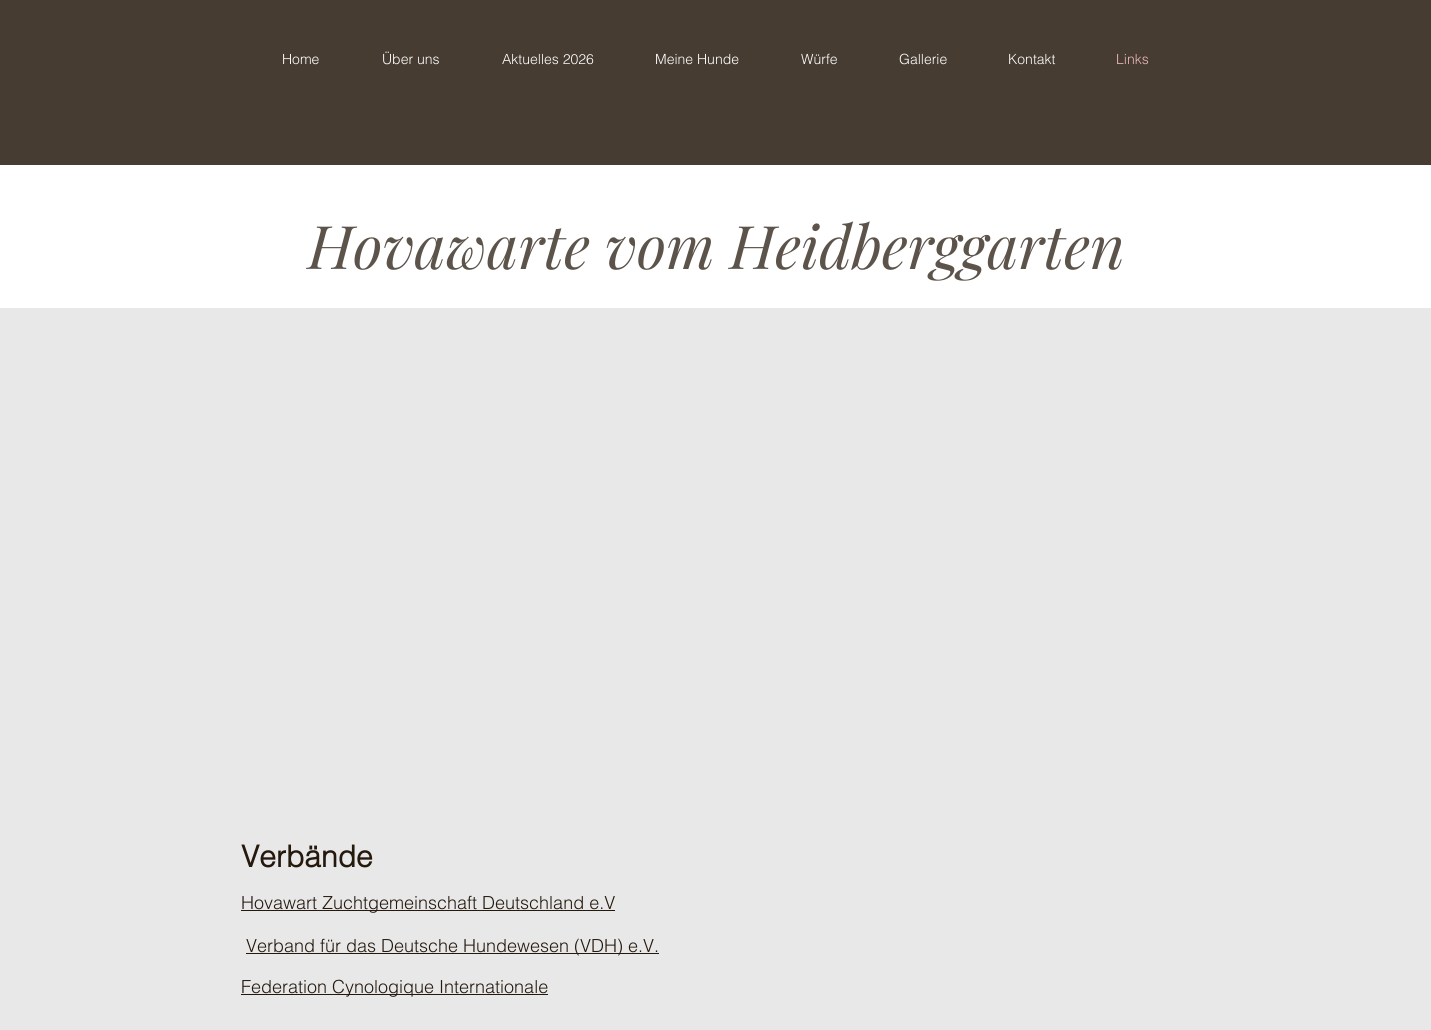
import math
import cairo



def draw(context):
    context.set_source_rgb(1, 1, 1)
    context.paint()
    context.set_source_rgb(70 / 255, 60 / 255, 50 / 255)
    context.rectangle(0, 0, 1431, 165)
    context.fill()
    context.set_source_rgb(232 / 255, 232 / 255, 232 / 255)
    context.rectangle(0, 308, 1431, 722)
    context.fill()
    context.set_source_rgb(37 / 255, 25 / 255, 14 / 255)
    context.rectangle(241, 910, 374, 1)
    context.fill()
    context.rectangle(246, 953, 413, 1)
    context.fill()
    context.rectangle(241, 994, 307, 1)
    context.fill()
    context.select_font_face("helvetica Light")
    context.set_font_size(14)
    context.set_source_rgb(1, 1, 1)
    context.move_to(282, 64)
    context.show_text("Home")
    context.move_to(382, 64)
    context.show_text("Über uns")
    context.move_to(502, 64)
    context.show_text("Aktuelles 2026")
    context.move_to(655, 64)
    context.show_text("Meine Hunde")
    context.move_to(801, 64)
    context.show_text("Würfe")
    context.move_to(899, 64)
    context.show_text("Gallerie")
    context.move_to(1008, 64)
    context.show_text("Kontakt")
    context.set_source_rgb(237 / 255, 184 / 255, 187 / 255)
    context.move_to(1116, 64)
    context.show_text("Links")
    context.select_font_face("Playfair Display", cairo.FontSlant.ITALIC)
    context.set_font_size(60)
    context.set_source_rgb(92 / 255, 83 / 255, 75 / 255)
    context.move_to(308, 269)
    context.show_text("Hovawarte vom Heidberggarten")
    context.select_font_face("helvetica", cairo.FontSlant.NORMAL, cairo.FontWeight.BOLD)
    context.set_font_size(30)
    context.set_source_rgb(37 / 255, 25 / 255, 14 / 255)
    context.move_to(241, 867)
    context.show_text("Verbände")
    context.select_font_face("helvetica Light")
    context.set_font_size(18)
    context.move_to(241, 909)
    context.show_text("Hovawart Zuchtgemeinschaft Deutschland e.V")
    context.move_to(246, 952)
    context.show_text("Verband für das Deutsche Hundewesen (VDH) e.V.")
    context.move_to(241, 993)
    context.show_text("Federation Cynologique Internationale")


surface = cairo.ImageSurface(cairo.Format.RGB24, 1431, 1030)
context = cairo.Context(surface)
options = cairo.FontOptions()
options.set_hint_metrics(cairo.HintMetrics.OFF)
options.set_hint_style(cairo.HintStyle.NONE)
context.set_font_options(options)
context.set_miter_limit(4)
draw(context)
surface.write_to_png("out.png")
